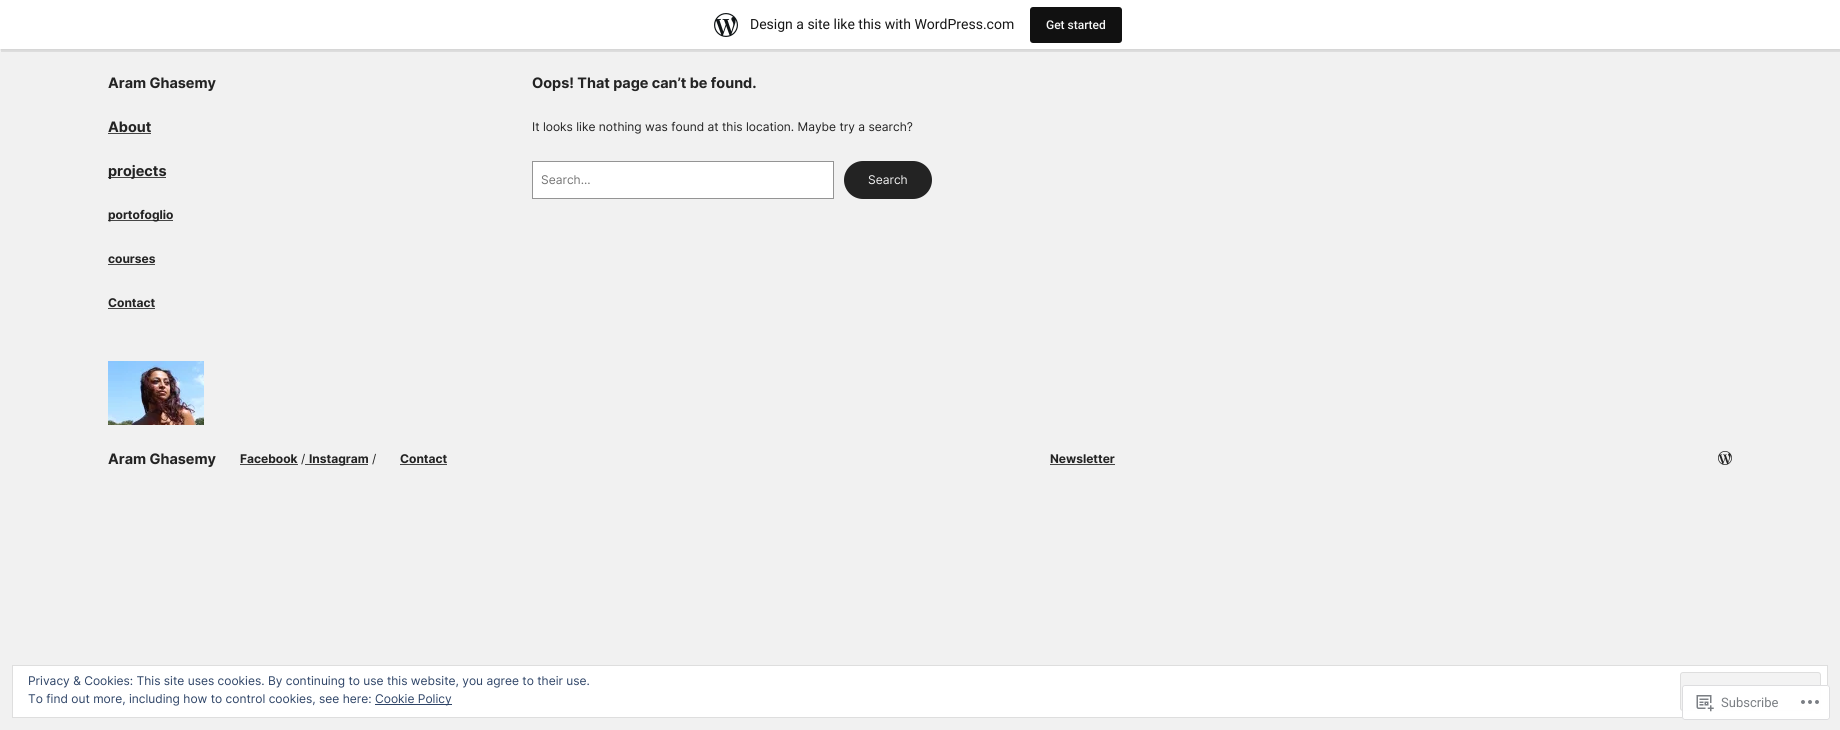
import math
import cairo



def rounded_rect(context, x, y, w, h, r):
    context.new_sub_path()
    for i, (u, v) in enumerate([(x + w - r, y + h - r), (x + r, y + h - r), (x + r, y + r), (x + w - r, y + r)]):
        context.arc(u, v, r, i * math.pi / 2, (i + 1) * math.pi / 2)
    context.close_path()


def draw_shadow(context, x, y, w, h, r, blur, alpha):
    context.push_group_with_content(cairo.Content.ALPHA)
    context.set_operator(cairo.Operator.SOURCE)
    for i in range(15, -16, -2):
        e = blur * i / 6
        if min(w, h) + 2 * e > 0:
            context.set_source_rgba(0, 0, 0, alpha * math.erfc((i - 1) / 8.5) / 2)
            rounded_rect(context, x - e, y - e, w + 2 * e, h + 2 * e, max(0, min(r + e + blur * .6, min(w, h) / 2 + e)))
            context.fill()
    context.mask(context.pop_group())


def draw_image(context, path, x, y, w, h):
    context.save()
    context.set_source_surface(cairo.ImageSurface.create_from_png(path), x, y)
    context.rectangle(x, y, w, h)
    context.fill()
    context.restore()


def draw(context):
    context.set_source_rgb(241 / 255, 241 / 255, 241 / 255)
    context.paint()
    context.set_source_rgb(0, 0, 0)
    draw_shadow(context, 0, 1, 1840, 49, 0, 1, 0.05)
    context.set_source_rgba(0, 0, 0, 0.08)
    context.new_path()
    context.move_to(1, 49)
    context.line_to(1, 52)
    context.line_to(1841, 52)
    context.line_to(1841, 3)
    context.line_to(1840, 3)
    context.line_to(1840, 49)
    context.close_path()
    context.fill()
    context.set_source_rgb(1, 1, 1)
    context.rectangle(0, 0, 1840, 49)
    context.fill()
    draw_image(context, "images/1.png", 714, 13, 24, 24)
    context.set_source_rgb(17 / 255, 17 / 255, 17 / 255)
    rounded_rect(context, 1030, 7, 92, 36, 3)
    context.fill()
    context.set_source_rgb(70 / 255, 70 / 255, 70 / 255)
    context.rectangle(108, 133, 43, 1)
    context.fill()
    context.rectangle(108, 177, 58, 1)
    context.fill()
    context.rectangle(108, 220, 65, 1)
    context.fill()
    context.rectangle(108, 264, 47, 1)
    context.fill()
    context.rectangle(108, 308, 47, 1)
    context.fill()
    context.set_source_rgb(1, 1, 1)
    context.rectangle(532.5, 161.5, 301, 37)
    context.fill_preserve()
    context.set_source_rgb(148 / 255, 148 / 255, 148 / 255)
    context.set_line_width(1)
    context.stroke()
    context.set_source_rgb(35 / 255, 35 / 255, 35 / 255)
    rounded_rect(context, 844, 161, 88, 38, 19)
    context.fill()
    draw_image(context, "images/2.png", 108, 361, 96, 64)
    context.set_source_rgb(70 / 255, 70 / 255, 70 / 255)
    context.rectangle(240, 464, 58, 1)
    context.fill()
    context.rectangle(305, 464, 63, 1)
    context.fill()
    context.rectangle(400, 464, 47, 1)
    context.fill()
    context.rectangle(1050, 464, 65, 1)
    context.fill()
    draw_image(context, "images/3.png", 1718, 451, 14, 14)
    context.set_source_rgb(1, 1, 1)
    context.rectangle(12.5, 665.5, 1815, 52)
    context.fill_preserve()
    context.set_source_rgb(222 / 255, 222 / 255, 222 / 255)
    context.stroke()
    context.set_source_rgb(243 / 255, 243 / 255, 243 / 255)
    rounded_rect(context, 1680.5, 672.5, 140, 38, 2.5)
    context.fill_preserve()
    context.set_source_rgb(222 / 255, 222 / 255, 222 / 255)
    context.stroke()
    context.set_source_rgb(46 / 255, 68 / 255, 103 / 255)
    context.rectangle(375, 704, 77, 1)
    context.fill()
    context.set_source_rgba(1, 1, 1, 0.98)
    rounded_rect(context, 1682, 685, 148, 35, 3)
    context.fill()
    rounded_rect(context, 1682.5, 685.5, 147, 34, 2.5)
    context.set_source_rgba(220 / 255, 220 / 255, 222 / 255, 0.98)
    context.stroke()
    draw_image(context, "images/4.png", 1696, 695, 18, 17)
    draw_image(context, "images/5.png", 1801, 700, 18, 4)
    context.select_font_face("Roboto")
    context.set_font_size(14)
    context.set_source_rgb(23 / 255, 23 / 255, 23 / 255)
    context.move_to(750, 29)
    context.show_text("Design a site like this with WordPress.com")
    context.select_font_face("Roboto Medium")
    context.set_font_size(12)
    context.set_source_rgb(246 / 255, 247 / 255, 247 / 255)
    context.move_to(1046, 29)
    context.show_text("Get started")
    context.select_font_face("Inter", cairo.FontSlant.NORMAL, cairo.FontWeight.BOLD)
    context.set_font_size(14.4)
    context.set_source_rgb(35 / 255, 35 / 255, 35 / 255)
    context.move_to(108, 88)
    context.show_text("Aram Ghasemy")
    context.move_to(108, 132)
    context.show_text("About")
    context.move_to(108, 176)
    context.show_text("projects")
    context.set_font_size(12)
    context.move_to(108, 219)
    context.show_text("portofoglio")
    context.move_to(108, 263)
    context.show_text("courses")
    context.move_to(108, 307)
    context.show_text("Contact")
    context.set_font_size(14.4)
    context.move_to(532, 88)
    context.show_text("Oops! That page can’t be found.")
    context.select_font_face("Inter")
    context.set_font_size(12)
    context.move_to(532, 131)
    context.show_text("It looks like nothing was found at this location. Maybe try a search?")
    context.set_source_rgb(117 / 255, 117 / 255, 117 / 255)
    context.move_to(541, 184)
    context.show_text("Search...")
    context.set_source_rgb(241 / 255, 241 / 255, 241 / 255)
    context.move_to(868, 184)
    context.show_text("Search")
    context.select_font_face("Inter", cairo.FontSlant.NORMAL, cairo.FontWeight.BOLD)
    context.set_font_size(14.4)
    context.set_source_rgb(35 / 255, 35 / 255, 35 / 255)
    context.move_to(108, 464)
    context.show_text("Aram Ghasemy")
    context.set_font_size(12)
    context.move_to(240, 463)
    context.show_text("Facebook")
    context.select_font_face("Inter")
    context.move_to(301, 463)
    context.show_text("/")
    context.select_font_face("Inter", cairo.FontSlant.NORMAL, cairo.FontWeight.BOLD)
    context.move_to(309, 463)
    context.show_text("Instagram")
    context.select_font_face("Inter")
    context.move_to(372, 463)
    context.show_text("/")
    context.select_font_face("Inter", cairo.FontSlant.NORMAL, cairo.FontWeight.BOLD)
    context.move_to(400, 463)
    context.show_text("Contact")
    context.move_to(1050, 463)
    context.show_text("Newsletter")
    context.select_font_face("Inter")
    context.set_source_rgb(46 / 255, 68 / 255, 103 / 255)
    context.move_to(28, 685)
    context.show_text("Privacy & Cookies: This site uses cookies. By continuing to use this website, you agree to their use.")
    context.move_to(28, 703)
    context.show_text("To find out more, including how to control cookies, see here:")
    context.move_to(375, 703)
    context.show_text("Cookie Policy")
    context.select_font_face("Roboto")
    context.set_font_size(13)
    context.set_source_rgb(123 / 255, 127 / 255, 132 / 255)
    context.move_to(1721, 707)
    context.show_text("Subscribe")


surface = cairo.ImageSurface(cairo.Format.RGB24, 1840, 730)
context = cairo.Context(surface)
options = cairo.FontOptions()
options.set_hint_metrics(cairo.HintMetrics.OFF)
options.set_hint_style(cairo.HintStyle.NONE)
context.set_font_options(options)
context.set_miter_limit(4)
draw(context)
surface.write_to_png("out.png")
